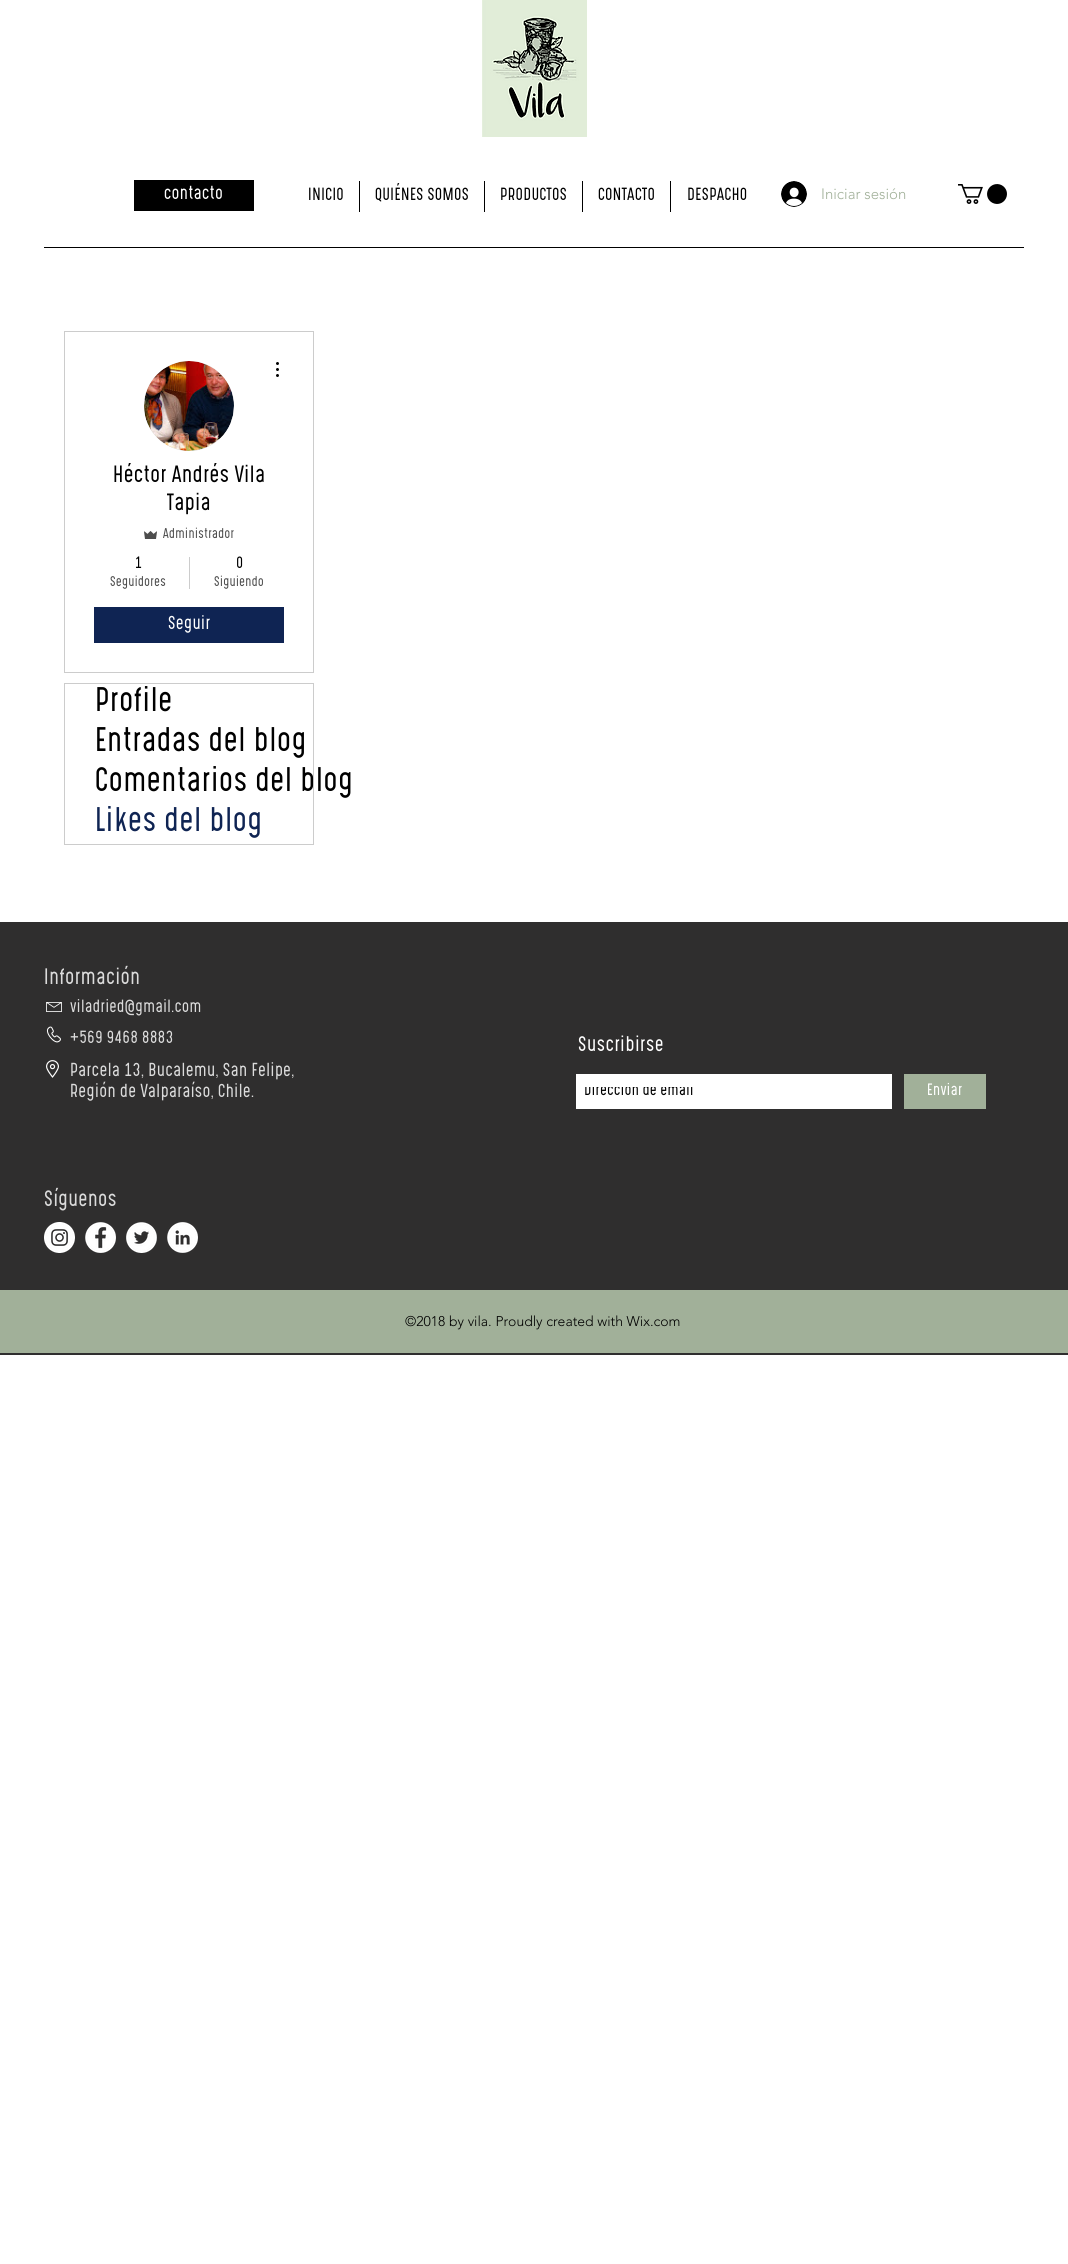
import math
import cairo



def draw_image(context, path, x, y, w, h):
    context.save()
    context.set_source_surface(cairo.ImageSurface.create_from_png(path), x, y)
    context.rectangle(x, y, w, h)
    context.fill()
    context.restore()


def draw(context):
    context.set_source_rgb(1, 1, 1)
    context.paint()
    draw_image(context, "images/1.png", 482, 0, 105, 137)
    context.set_source_rgb(0, 0, 0)
    context.rectangle(359, 181, 1, 31)
    context.fill()
    context.rectangle(484, 181, 1, 31)
    context.fill()
    context.rectangle(582, 181, 1, 31)
    context.fill()
    context.rectangle(670, 181, 1, 31)
    context.fill()
    draw_image(context, "images/2.png", 958, 184, 49, 20)
    context.rectangle(134, 180, 120, 31)
    context.fill()
    draw_image(context, "images/3.png", 781, 181, 26, 26)
    context.rectangle(44, 247, 980, 1)
    context.fill()
    context.rectangle(64.5, 331.5, 249, 341)
    context.set_source_rgb(204 / 255, 204 / 255, 204 / 255)
    context.set_line_width(1)
    context.stroke()
    context.set_source_rgb(216 / 255, 216 / 255, 216 / 255)
    context.arc(189, 406, 45, 0, 2 * math.pi)
    context.fill()
    draw_image(context, "images/4.png", 144, 361, 90, 90)
    draw_image(context, "images/5.png", 276, 362, 3, 15)
    draw_image(context, "images/6.png", 144, 531, 13, 8)
    context.set_source_rgb(204 / 255, 204 / 255, 204 / 255)
    context.rectangle(189, 557, 1, 32)
    context.fill()
    context.set_source_rgb(15 / 255, 36 / 255, 83 / 255)
    context.rectangle(94, 607, 190, 36)
    context.fill()
    context.rectangle(64.5, 683.5, 249, 161)
    context.set_source_rgb(204 / 255, 204 / 255, 204 / 255)
    context.stroke()
    context.set_source_rgb(47 / 255, 46 / 255, 46 / 255)
    context.rectangle(0, 922, 1068, 433)
    context.fill()
    draw_image(context, "images/7.png", 46, 1002, 16, 10)
    draw_image(context, "images/8.png", 46, 1026, 15, 17)
    context.set_source_rgb(1, 1, 1)
    context.rectangle(576, 1074, 316, 35)
    context.fill()
    context.set_source_rgb(161 / 255, 176 / 255, 153 / 255)
    context.rectangle(904, 1074, 82, 35)
    context.fill()
    draw_image(context, "images/9.png", 46, 1060, 13, 18)
    draw_image(context, "images/10.png", 44, 1222, 31, 31)
    draw_image(context, "images/11.png", 85, 1222, 31, 31)
    draw_image(context, "images/12.png", 126, 1222, 31, 31)
    draw_image(context, "images/13.png", 167, 1222, 31, 31)
    context.rectangle(0, 1290, 1068, 63)
    context.fill()
    context.select_font_face("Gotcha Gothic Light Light")
    context.set_font_size(15)
    context.set_source_rgb(0, 0, 0)
    context.move_to(308, 200)
    context.show_text("INICIO")
    context.move_to(375, 200)
    context.show_text("QUIÉNES SOMOS")
    context.move_to(500, 200)
    context.show_text("PRODUCTOS")
    context.move_to(598, 200)
    context.show_text("CONTACTO")
    context.move_to(687, 200)
    context.show_text("DESPACHO")
    context.set_font_size(16)
    context.set_source_rgb(1, 1, 1)
    context.move_to(164, 199)
    context.show_text("contacto")
    context.select_font_face("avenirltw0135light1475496 Light")
    context.set_font_size(15)
    context.set_source_rgb(161 / 255, 176 / 255, 153 / 255)
    context.move_to(821, 199)
    context.show_text("Iniciar sesión")
    context.save()
    context.rectangle(94, 463, 190, 56)
    context.clip()
    context.select_font_face("Gotcha Gothic Light Light")
    context.set_font_size(20)
    context.set_source_rgb(0, 0, 0)
    context.move_to(113, 482)
    context.show_text("Héctor Andrés Vila")
    context.restore()
    context.select_font_face("Gotcha Gothic Light Light")
    context.set_font_size(20)
    context.set_source_rgb(0, 0, 0)
    context.move_to(167, 510)
    context.show_text("Tapia")
    context.set_font_size(12)
    context.set_source_rgb(77 / 255, 77 / 255, 77 / 255)
    context.move_to(163, 538)
    context.show_text("Administrador")
    context.set_font_size(14)
    context.set_source_rgb(0, 0, 0)
    context.move_to(135, 568)
    context.show_text("1")
    context.set_font_size(12)
    context.set_source_rgb(77 / 255, 77 / 255, 77 / 255)
    context.move_to(110, 586)
    context.show_text("Seguidores")
    context.set_font_size(14)
    context.set_source_rgb(0, 0, 0)
    context.move_to(236, 568)
    context.show_text("0")
    context.set_font_size(12)
    context.set_source_rgb(77 / 255, 77 / 255, 77 / 255)
    context.move_to(214, 586)
    context.show_text("Siguiendo")
    context.set_font_size(16)
    context.set_source_rgb(1, 1, 1)
    context.move_to(168, 629)
    context.show_text("Seguir")
    context.set_font_size(29)
    context.set_source_rgb(0, 0, 0)
    context.move_to(95, 711)
    context.show_text("Profile")
    context.move_to(95, 751)
    context.show_text("Entradas del blog")
    context.move_to(95, 791)
    context.show_text("Comentarios del blog")
    context.set_source_rgb(15 / 255, 36 / 255, 83 / 255)
    context.move_to(95, 831)
    context.show_text("Likes del blog")
    context.set_font_size(19)
    context.set_source_rgb(219 / 255, 219 / 255, 219 / 255)
    context.move_to(44, 984)
    context.show_text("Información")
    context.set_font_size(15)
    context.move_to(70, 1012)
    context.show_text("viladried@gmail.com")
    context.move_to(70, 1043)
    context.show_text("+569 9468 8883")
    context.set_font_size(16)
    context.move_to(70, 1076)
    context.show_text("Parcela 13, Bucalemu, San Felipe,")
    context.move_to(70, 1097)
    context.show_text("Región de Valparaíso, Chile.")
    context.set_font_size(18)
    context.set_source_rgb(1, 1, 1)
    context.move_to(578, 1051)
    context.show_text("Suscribirse")
    context.save()
    context.rectangle(584, 1087, 305, 9)
    context.clip()
    context.set_font_size(14)
    context.set_source_rgb(0, 0, 0)
    context.move_to(584, 1095)
    context.show_text("Dirección de email")
    context.restore()
    context.set_font_size(14)
    context.move_to(927, 1095)
    context.show_text("Enviar")
    context.set_font_size(19)
    context.set_source_rgb(219 / 255, 219 / 255, 219 / 255)
    context.move_to(44, 1206)
    context.show_text("Síguenos")
    context.select_font_face("avenirltw0135light1475496 Light")
    context.set_font_size(14)
    context.set_source_rgb(0, 0, 0)
    context.move_to(405, 1326)
    context.show_text("©2018 by vila. Proudly created with Wix.com")


surface = cairo.ImageSurface(cairo.Format.RGB24, 1068, 2264)
context = cairo.Context(surface)
options = cairo.FontOptions()
options.set_hint_metrics(cairo.HintMetrics.OFF)
options.set_hint_style(cairo.HintStyle.NONE)
context.set_font_options(options)
context.set_miter_limit(4)
draw(context)
surface.write_to_png("out.png")
